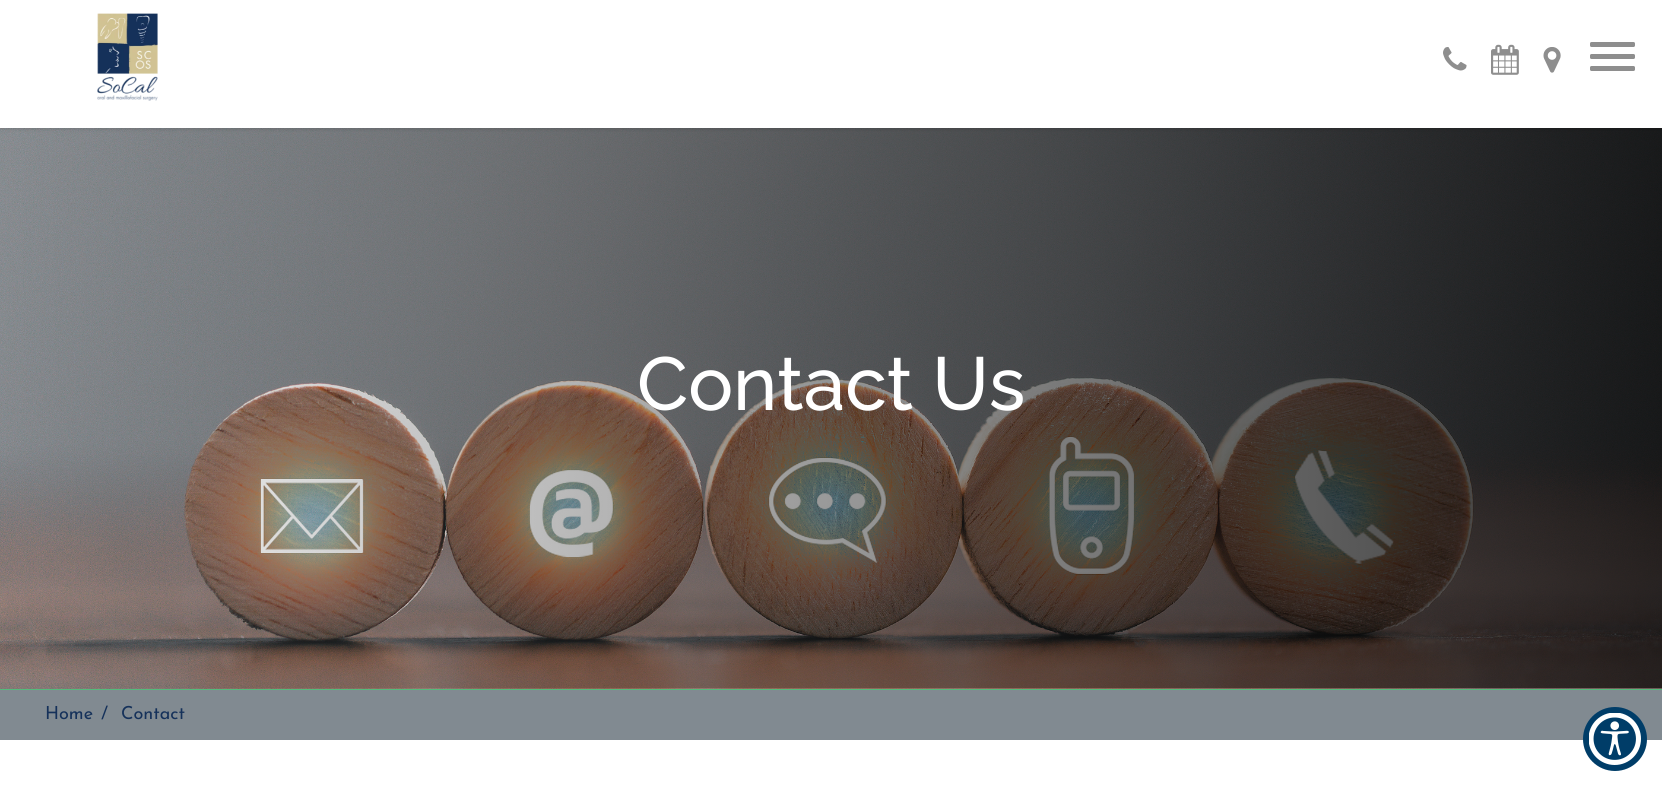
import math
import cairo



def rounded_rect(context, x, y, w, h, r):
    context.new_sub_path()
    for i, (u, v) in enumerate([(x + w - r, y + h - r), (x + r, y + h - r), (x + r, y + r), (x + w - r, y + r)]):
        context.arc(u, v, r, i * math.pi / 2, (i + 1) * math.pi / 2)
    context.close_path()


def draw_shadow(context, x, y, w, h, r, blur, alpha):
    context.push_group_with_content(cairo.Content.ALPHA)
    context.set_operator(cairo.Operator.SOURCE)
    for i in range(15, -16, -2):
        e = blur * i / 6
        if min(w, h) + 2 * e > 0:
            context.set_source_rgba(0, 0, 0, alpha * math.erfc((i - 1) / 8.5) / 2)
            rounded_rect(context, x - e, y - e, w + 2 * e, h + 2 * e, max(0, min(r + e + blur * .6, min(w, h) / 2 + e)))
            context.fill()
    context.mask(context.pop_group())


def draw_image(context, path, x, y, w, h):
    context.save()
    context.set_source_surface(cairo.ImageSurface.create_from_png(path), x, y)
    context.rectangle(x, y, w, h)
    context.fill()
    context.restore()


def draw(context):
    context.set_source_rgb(1, 1, 1)
    context.paint()
    draw_image(context, "images/5.png", 0, 128, 1662, 561)
    context.set_source_rgb(0, 0, 0)
    draw_shadow(context, 0, 2, 1662, 127, 0, 2, 0.14)
    context.set_source_rgb(1, 1, 1)
    context.rectangle(0, 0, 1662, 128)
    context.fill()
    draw_image(context, "images/1.png", 97, 13, 61, 88)
    draw_image(context, "images/2.png", 1443, 47, 24, 24)
    draw_image(context, "images/3.png", 1491, 44, 28, 31)
    draw_image(context, "images/4.png", 1543, 47, 18, 26)
    context.set_source_rgb(142 / 255, 142 / 255, 142 / 255)
    rounded_rect(context, 1590, 42, 45, 5, 1.5)
    context.fill()
    rounded_rect(context, 1590, 54, 45, 5, 1.5)
    context.fill()
    rounded_rect(context, 1590, 66, 45, 5, 1.5)
    context.fill()
    context.set_source_rgb(85 / 255, 186 / 255, 124 / 255)
    context.rectangle(0, 689, 1662, 1)
    context.fill()
    context.set_source_rgb(129 / 255, 138 / 255, 145 / 255)
    context.rectangle(0, 690, 1662, 50)
    context.fill()
    context.set_source_rgb(0, 61 / 255, 104 / 255)
    context.arc(1615, 739, 32, 0, 2 * math.pi)
    context.fill()
    draw_image(context, "images/6.png", 1589, 713, 52, 52)
    context.select_font_face("Raleway Medium")
    context.set_font_size(75)
    context.set_source_rgb(1, 1, 1)
    context.move_to(637, 410)
    context.show_text("Contact Us")
    context.select_font_face("Josefin Sans")
    context.set_font_size(18)
    context.set_source_rgb(21 / 255, 49 / 255, 90 / 255)
    context.move_to(45, 719)
    context.show_text("Home")
    context.move_to(101, 719)
    context.show_text("/")
    context.move_to(121, 719)
    context.show_text("Contact")


surface = cairo.ImageSurface(cairo.Format.RGB24, 1662, 786)
context = cairo.Context(surface)
options = cairo.FontOptions()
options.set_hint_metrics(cairo.HintMetrics.OFF)
options.set_hint_style(cairo.HintStyle.NONE)
context.set_font_options(options)
context.set_miter_limit(4)
draw(context)
surface.write_to_png("out.png")
